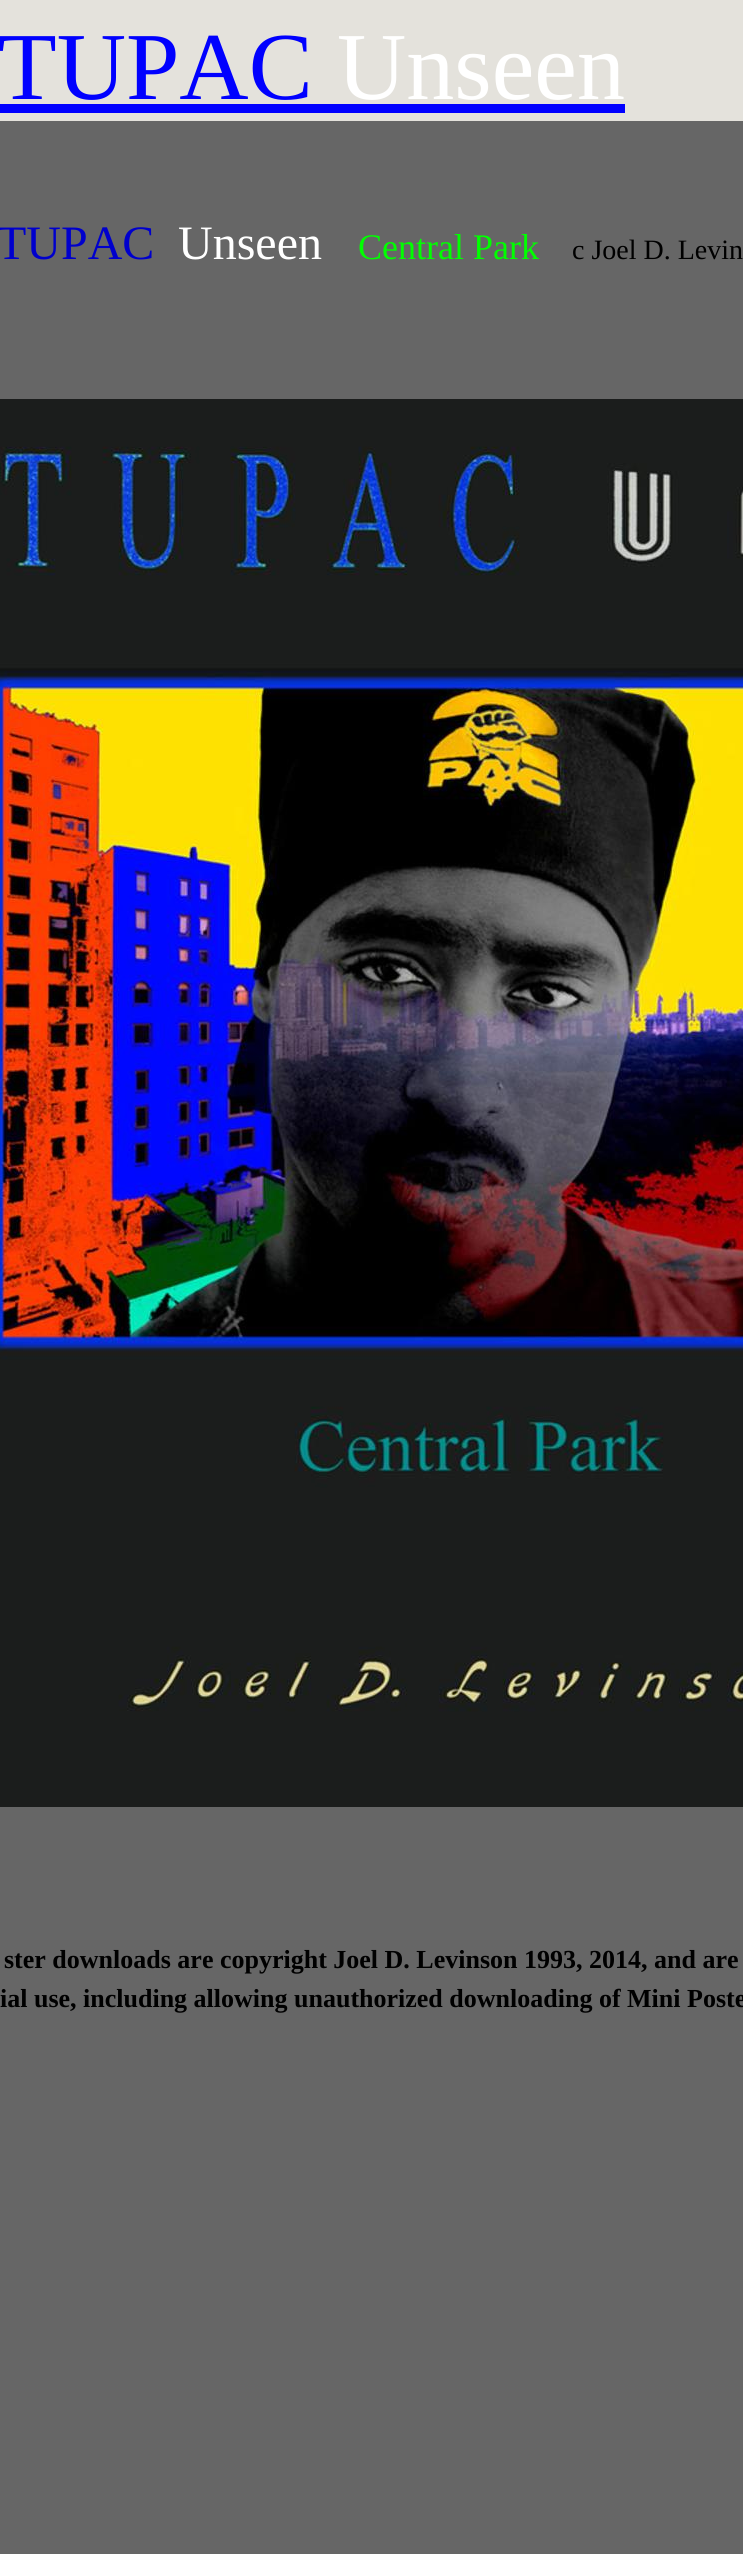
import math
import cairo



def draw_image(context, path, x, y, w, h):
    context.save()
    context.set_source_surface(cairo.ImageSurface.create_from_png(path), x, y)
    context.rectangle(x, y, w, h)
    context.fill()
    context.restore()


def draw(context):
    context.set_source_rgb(102 / 255, 102 / 255, 102 / 255)
    context.paint()
    context.set_source_rgb(228 / 255, 226 / 255, 220 / 255)
    context.rectangle(0, 0, 743, 121)
    context.fill()
    context.set_source_rgb(0, 0, 1)
    context.rectangle(0, 104, 625, 9)
    context.fill()
    draw_image(context, "images/1.png", 0, 399, 743, 1408)
    context.select_font_face("Liberation Serif")
    context.set_font_size(96)
    context.move_to(-2, 99)
    context.show_text("TUPAC")
    context.set_source_rgb(1, 1, 1)
    context.move_to(337, 99)
    context.show_text("Unseen")
    context.set_font_size(48)
    context.set_source_rgb(0, 0, 205 / 255)
    context.move_to(-3, 259)
    context.show_text("TUPAC")
    context.set_source_rgb(1, 1, 1)
    context.move_to(178, 259)
    context.show_text("Unseen")
    context.set_font_size(36)
    context.set_source_rgb(0, 1, 0)
    context.move_to(358, 259)
    context.show_text("Central Park")
    context.set_font_size(28)
    context.set_source_rgb(0, 0, 0)
    context.move_to(572, 259)
    context.show_text("c Joel D. Levin")
    context.select_font_face("Liberation Serif", cairo.FontSlant.NORMAL, cairo.FontWeight.BOLD)
    context.set_font_size(26)
    context.move_to(4, 1968)
    context.show_text("ster downloads are copyright Joel D. Levinson 1993, 2014, and are")
    context.move_to(0, 2007)
    context.show_text("ial use, including allowing unauthorized downloading of Mini Poste")


surface = cairo.ImageSurface(cairo.Format.RGB24, 743, 2554)
context = cairo.Context(surface)
options = cairo.FontOptions()
options.set_hint_metrics(cairo.HintMetrics.OFF)
options.set_hint_style(cairo.HintStyle.NONE)
context.set_font_options(options)
context.set_miter_limit(4)
draw(context)
surface.write_to_png("out.png")
